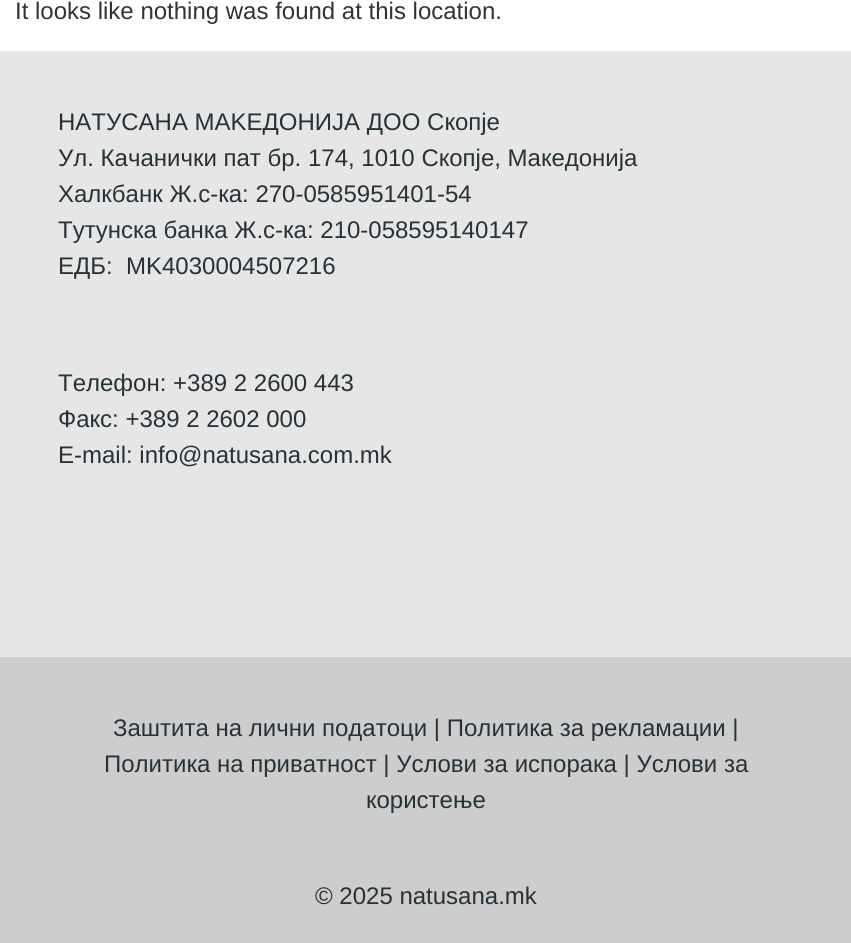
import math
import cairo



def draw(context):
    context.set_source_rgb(1, 1, 1)
    context.paint()
    context.set_source_rgb(230 / 255, 230 / 255, 230 / 255)
    context.rectangle(0, 51, 851, 606)
    context.fill()
    context.set_source_rgb(205 / 255, 205 / 255, 205 / 255)
    context.rectangle(0, 657, 851, 286)
    context.fill()
    context.select_font_face("Liberation Sans")
    context.set_font_size(24)
    context.set_source_rgb(51 / 255, 51 / 255, 51 / 255)
    context.move_to(15, 19)
    context.show_text("It looks like nothing was found at this location.")
    context.set_source_rgb(38 / 255, 50 / 255, 56 / 255)
    context.move_to(58, 130)
    context.show_text("НАТУСАНА MAKEДОНИЈА ДОО Скопје")
    context.move_to(58, 166)
    context.show_text("Ул. Качанички пат бр. 174, 1010 Скопје, Македонија")
    context.move_to(58, 202)
    context.show_text("Халкбанк Ж.с-ка: 270-0585951401-54")
    context.move_to(58, 238)
    context.show_text("Тутунска банка Ж.с-ка: 210-058595140147")
    context.move_to(58, 274)
    context.show_text("ЕДБ:  МK4030004507216")
    context.move_to(58, 391)
    context.show_text("Телефон: +389 2 2600 443")
    context.move_to(58, 427)
    context.show_text("Факс: +389 2 2602 000")
    context.move_to(58, 463)
    context.show_text("E-mail: info@natusana.com.mk")
    context.move_to(113, 736)
    context.show_text("Заштита на лични податоци | Политика за рекламации |")
    context.move_to(104, 772)
    context.show_text("Политика на приватност | Услови за испорака | Услови за")
    context.move_to(366, 808)
    context.show_text("користење")
    context.move_to(315, 904)
    context.show_text("© 2025 natusana.mk")


surface = cairo.ImageSurface(cairo.Format.RGB24, 851, 943)
context = cairo.Context(surface)
options = cairo.FontOptions()
options.set_hint_metrics(cairo.HintMetrics.OFF)
options.set_hint_style(cairo.HintStyle.NONE)
context.set_font_options(options)
context.set_miter_limit(4)
draw(context)
surface.write_to_png("out.png")
